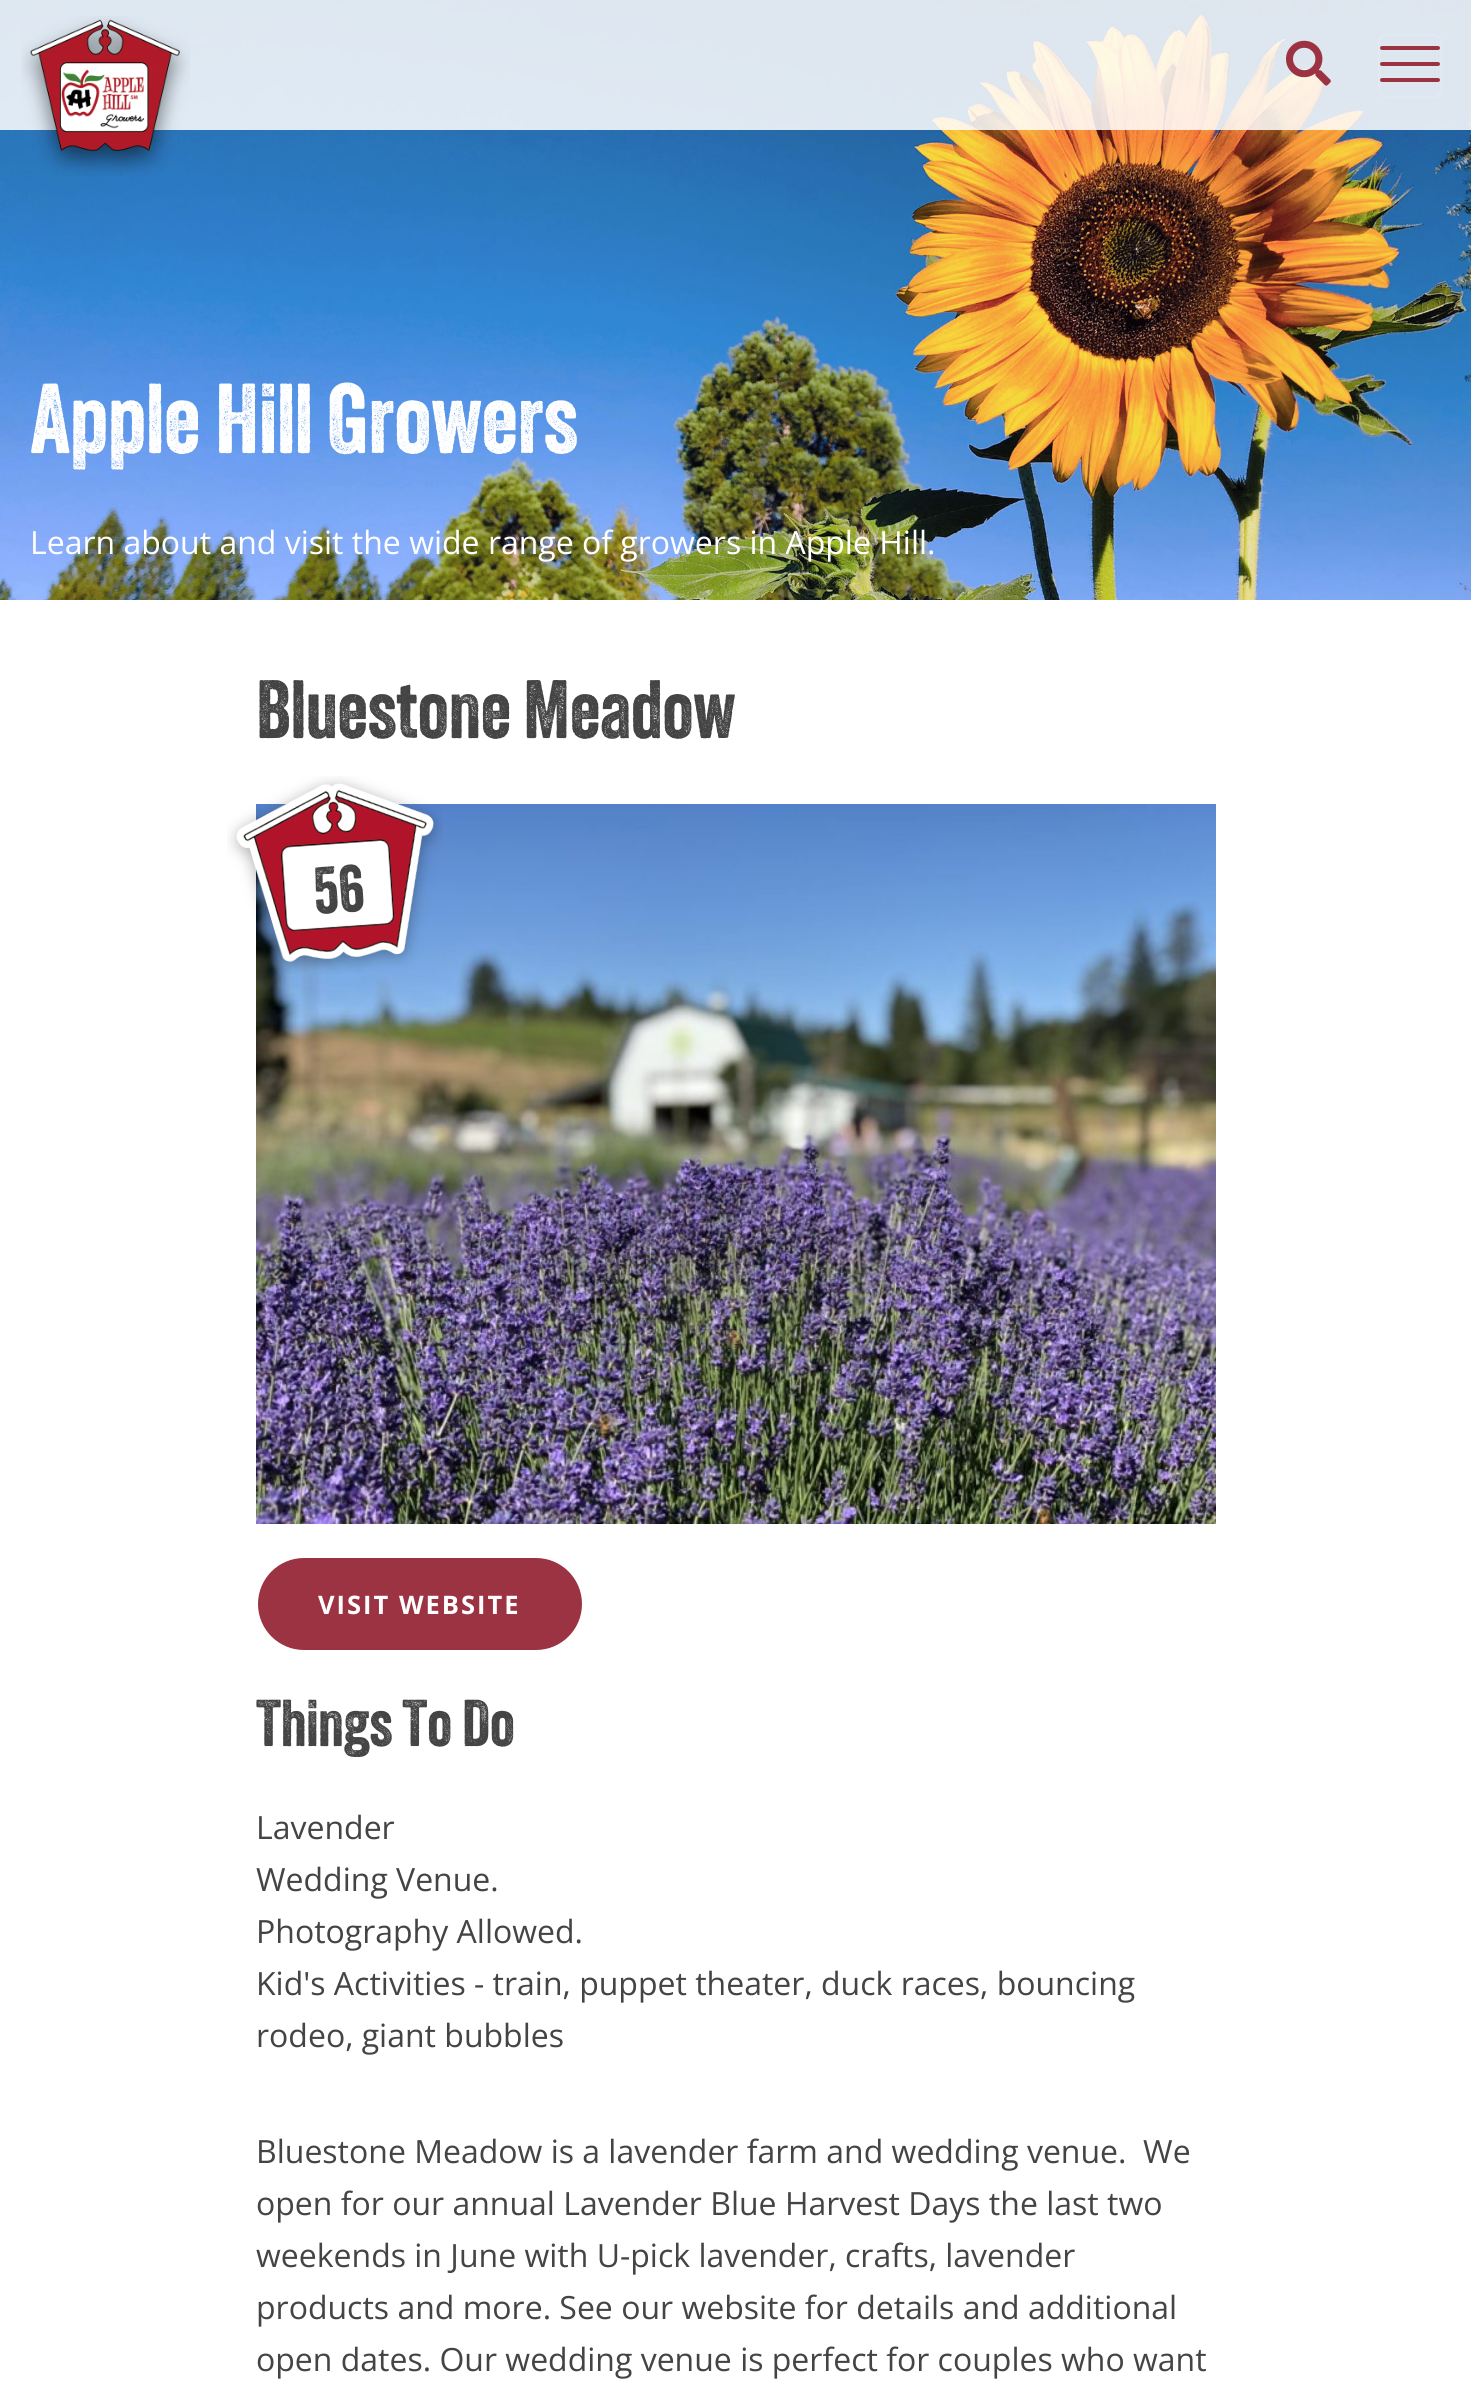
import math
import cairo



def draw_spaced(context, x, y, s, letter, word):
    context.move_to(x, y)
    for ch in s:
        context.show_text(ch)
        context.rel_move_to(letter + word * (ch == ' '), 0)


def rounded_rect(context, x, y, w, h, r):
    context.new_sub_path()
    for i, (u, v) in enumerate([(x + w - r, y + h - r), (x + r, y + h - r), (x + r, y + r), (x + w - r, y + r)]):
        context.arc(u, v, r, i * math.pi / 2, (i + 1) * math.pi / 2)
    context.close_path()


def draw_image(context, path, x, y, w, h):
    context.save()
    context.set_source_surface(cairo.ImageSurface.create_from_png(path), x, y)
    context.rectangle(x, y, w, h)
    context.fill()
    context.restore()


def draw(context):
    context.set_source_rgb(1, 1, 1)
    context.paint()
    draw_image(context, "images/3.png", 0, 0, 1471, 600)
    context.set_source_rgba(1, 1, 1, 0.85)
    context.rectangle(0, 0, 1471, 130)
    context.fill()
    draw_image(context, "images/1.png", 21, 16, 169, 160)
    draw_image(context, "images/2.png", 1286, 40, 45, 46)
    rounded_rect(context, 1379, 35, 62, 62, 7)
    context.set_source_rgb(225 / 255, 233 / 255, 241 / 255)
    context.stroke()
    context.set_source_rgb(156 / 255, 51 / 255, 66 / 255)
    rounded_rect(context, 1380, 46, 60, 4, 2)
    context.fill()
    rounded_rect(context, 1380, 62, 60, 4, 2)
    context.fill()
    rounded_rect(context, 1380, 78, 60, 4, 2)
    context.fill()
    draw_image(context, "images/5.png", 256, 804, 960, 720)
    draw_image(context, "images/4.png", 227, 776, 216, 198)
    rounded_rect(context, 257, 1557, 326, 94, 47)
    context.fill_preserve()
    context.set_source_rgb(1, 1, 1)
    context.stroke()
    context.select_font_face("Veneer")
    context.set_font_size(96)
    context.move_to(30, 453)
    context.show_text("Apple Hill Growers")
    context.select_font_face("Open Sans")
    context.set_font_size(32)
    context.move_to(30, 554)
    context.show_text("Learn about and visit the wide range of growers in Apple Hill.")
    context.select_font_face("Veneer")
    context.set_font_size(80)
    context.set_source_rgb(68 / 255, 68 / 255, 68 / 255)
    context.move_to(256, 738)
    context.show_text("Bluestone Meadow")
    context.set_font_size(64)
    context.save()
    context.translate(315, 914)
    context.rotate(-4 * math.pi / 180)
    context.move_to(0, 0)
    context.show_text("56")
    context.restore()
    context.select_font_face("Open Sans", cairo.FontSlant.NORMAL, cairo.FontWeight.BOLD)
    context.set_font_size(25.5)
    context.set_source_rgb(1, 1, 1)
    draw_spaced(context, 318, 1614, "VISIT WEBSITE", 2, 0)
    context.select_font_face("Veneer")
    context.set_font_size(64)
    context.set_source_rgb(68 / 255, 68 / 255, 68 / 255)
    context.move_to(256, 1746)
    context.show_text("Things To Do")
    context.select_font_face("Open Sans")
    context.set_font_size(32)
    context.move_to(256, 1839)
    context.show_text("Lavender")
    context.move_to(256, 1891)
    context.show_text("Wedding Venue.")
    context.move_to(256, 1943)
    context.show_text("Photography Allowed.")
    context.move_to(256, 1995)
    context.show_text("Kid's Activities - train, puppet theater, duck races, bouncing")
    context.move_to(256, 2047)
    context.show_text("rodeo, giant bubbles")
    context.move_to(256, 2163)
    context.show_text("Bluestone Meadow is a lavender farm and wedding venue.  We")
    context.move_to(256, 2215)
    context.show_text("open for our annual Lavender Blue Harvest Days the last two")
    context.move_to(256, 2267)
    context.show_text("weekends in June with U-pick lavender, crafts, lavender")
    context.move_to(256, 2319)
    context.show_text("products and more. See our website for details and additional")
    context.move_to(256, 2371)
    context.show_text("open dates. Our wedding venue is perfect for couples who want")


surface = cairo.ImageSurface(cairo.Format.RGB24, 1471, 2389)
context = cairo.Context(surface)
options = cairo.FontOptions()
options.set_hint_metrics(cairo.HintMetrics.OFF)
options.set_hint_style(cairo.HintStyle.NONE)
context.set_font_options(options)
context.set_miter_limit(4)
draw(context)
surface.write_to_png("out.png")
